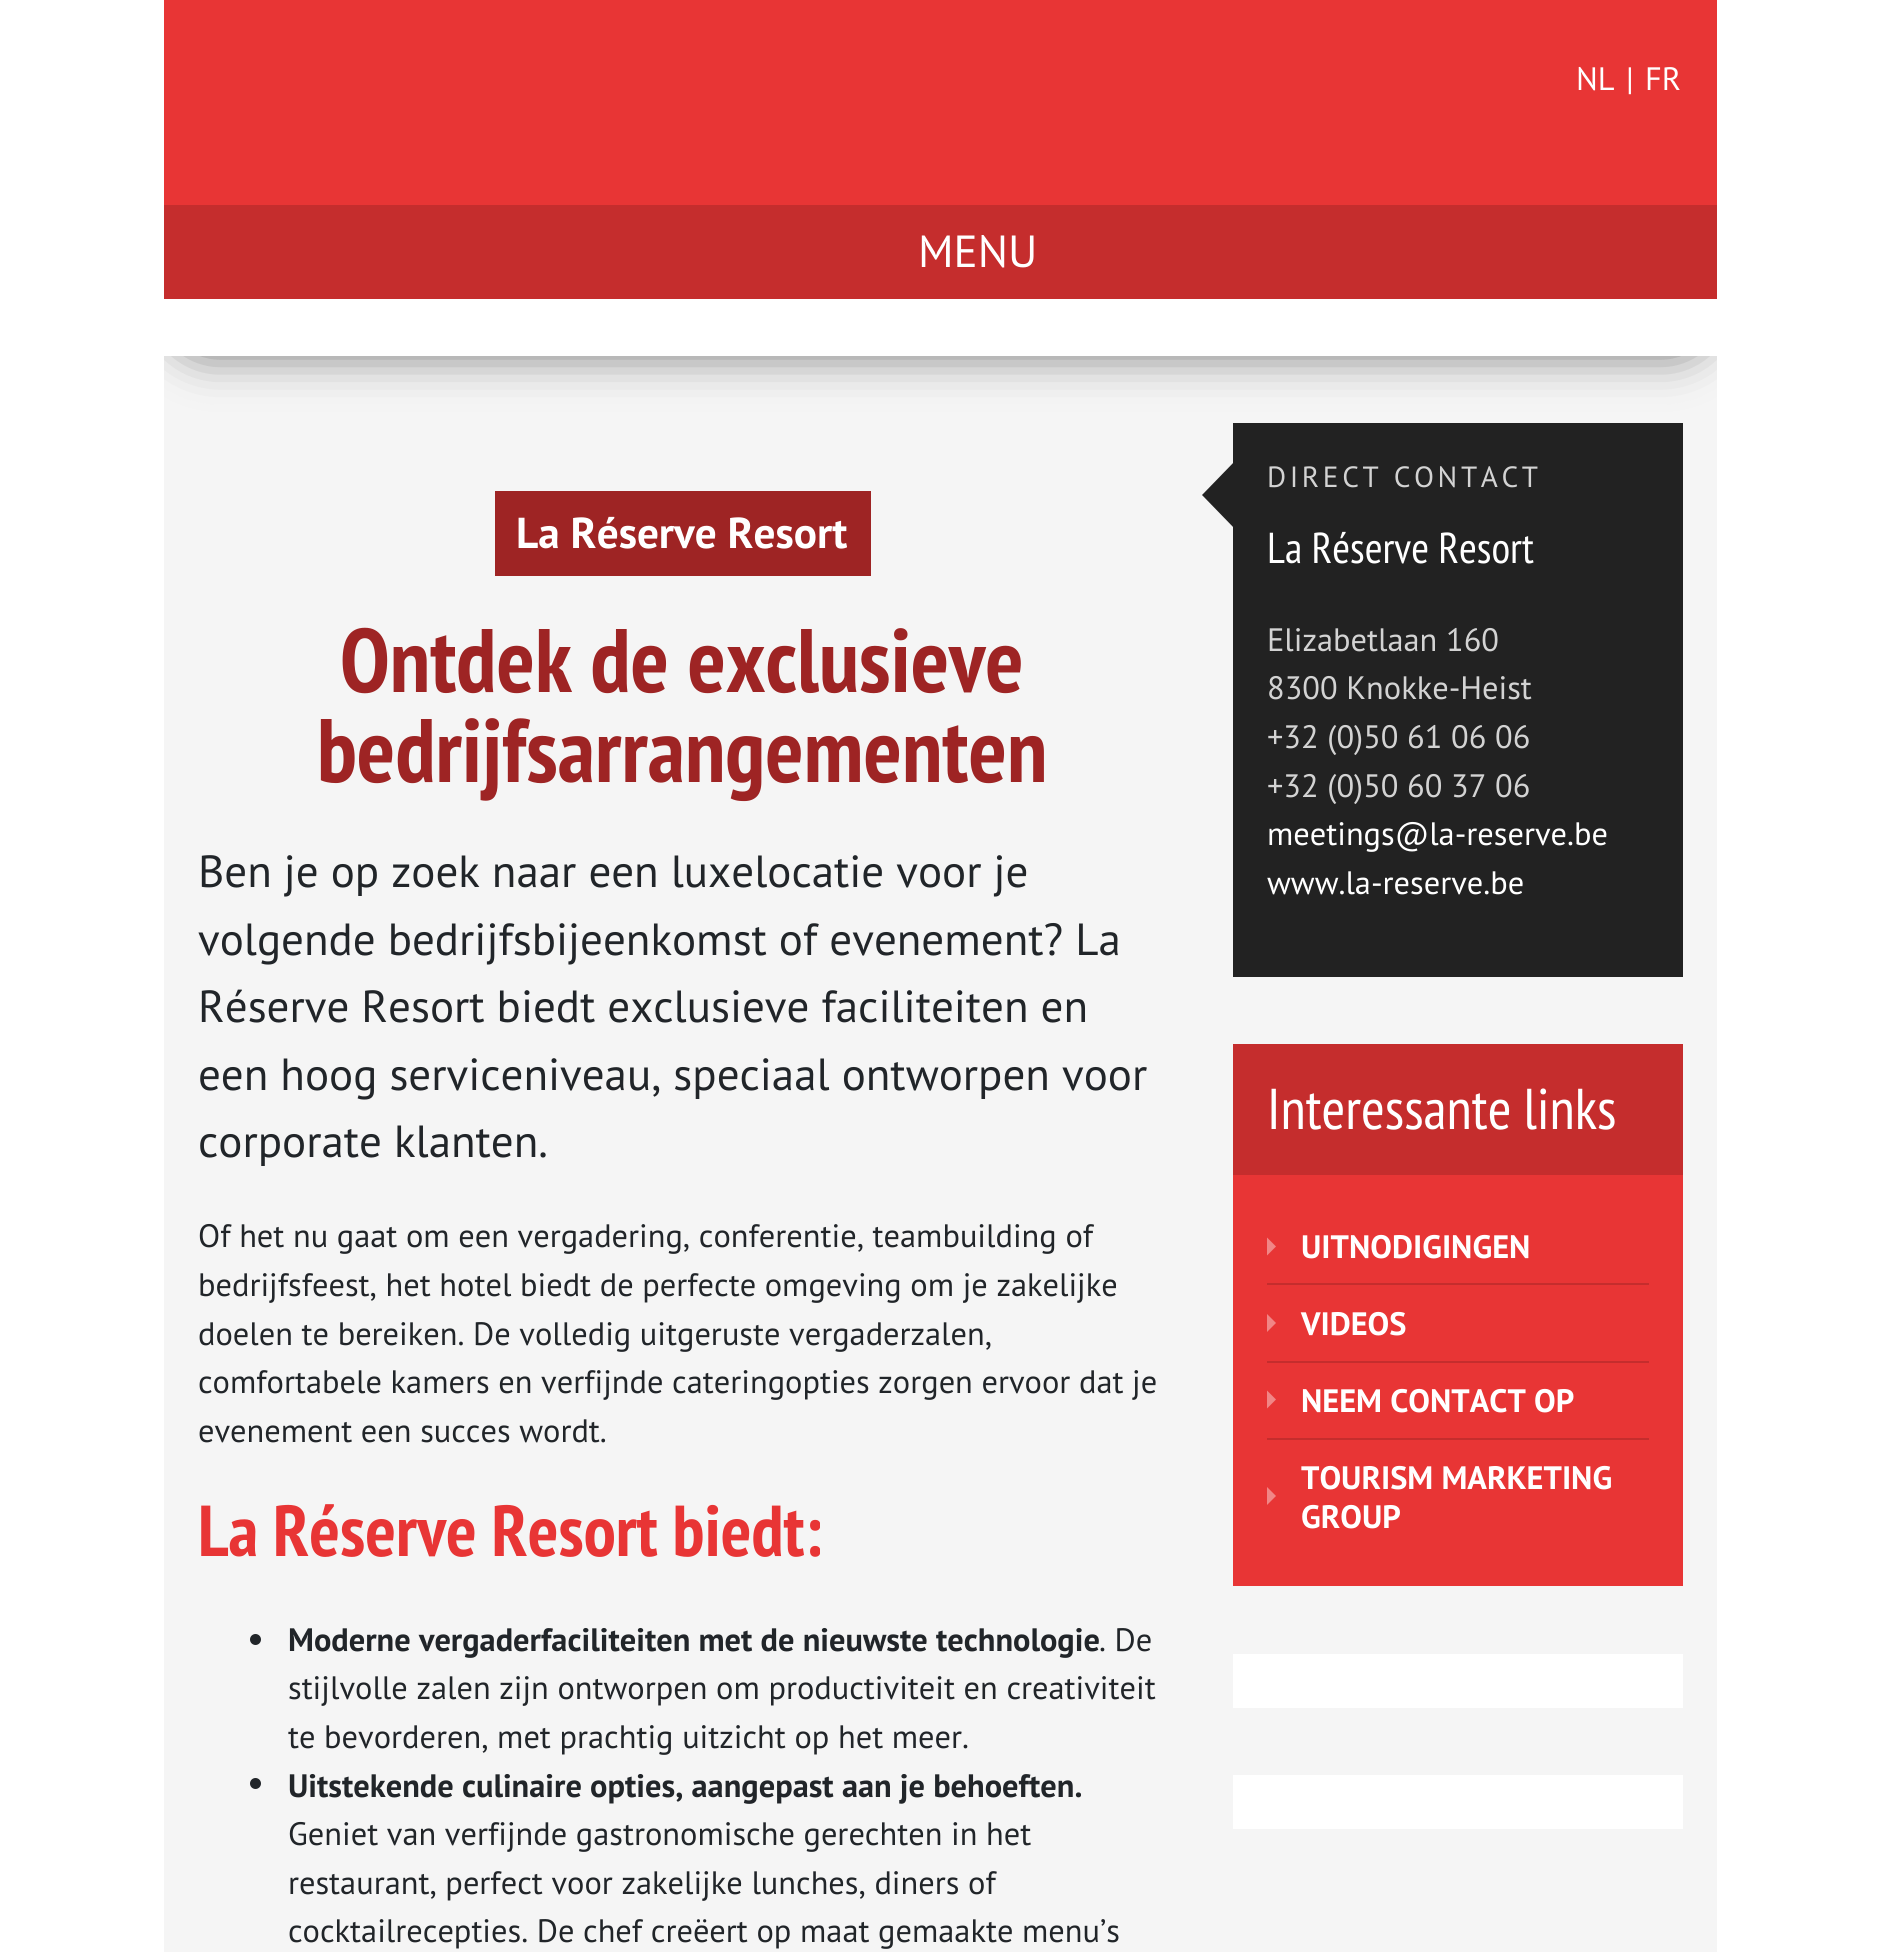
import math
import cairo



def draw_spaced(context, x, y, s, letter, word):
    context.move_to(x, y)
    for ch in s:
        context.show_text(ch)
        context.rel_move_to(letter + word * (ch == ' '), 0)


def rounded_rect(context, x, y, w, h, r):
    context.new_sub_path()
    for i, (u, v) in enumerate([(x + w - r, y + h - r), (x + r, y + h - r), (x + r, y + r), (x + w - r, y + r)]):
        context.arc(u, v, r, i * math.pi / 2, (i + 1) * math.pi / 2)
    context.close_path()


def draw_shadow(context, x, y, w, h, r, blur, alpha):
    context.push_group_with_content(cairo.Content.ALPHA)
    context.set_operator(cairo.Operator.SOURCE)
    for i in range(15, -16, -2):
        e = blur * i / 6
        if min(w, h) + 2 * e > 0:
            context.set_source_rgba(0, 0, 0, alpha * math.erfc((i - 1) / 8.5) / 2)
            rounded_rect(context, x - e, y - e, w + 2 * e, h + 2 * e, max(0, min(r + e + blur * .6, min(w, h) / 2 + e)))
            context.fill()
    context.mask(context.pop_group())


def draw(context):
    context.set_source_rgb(1, 1, 1)
    context.paint()
    context.set_source_rgb(232 / 255, 53 / 255, 53 / 255)
    context.rectangle(164, 0, 1553, 205)
    context.fill()
    context.set_source_rgb(197 / 255, 45 / 255, 45 / 255)
    context.rectangle(164, 205, 1553, 94)
    context.fill()
    context.set_source_rgb(245 / 255, 245 / 255, 245 / 255)
    context.rectangle(164, 356, 1553, 1596)
    context.fill()
    context.save()
    context.rectangle(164, 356, 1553, 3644)
    context.clip()
    context.set_source_rgb(0, 0, 0)
    draw_shadow(context, 164, 243, 1553, 113, 56.5, 22.5, 0.5)
    context.restore()
    context.set_source_rgb(158 / 255, 36 / 255, 36 / 255)
    context.rectangle(495, 491, 376, 85)
    context.fill()
    context.set_source_rgb(33 / 255, 37 / 255, 41 / 255)
    context.arc(255.5, 1639.5, 5.5, 0, 2 * math.pi)
    context.fill()
    context.arc(255.5, 1783.5, 5.5, 0, 2 * math.pi)
    context.fill()
    context.set_source_rgb(34 / 255, 34 / 255, 34 / 255)
    context.rectangle(1233, 423, 450, 554)
    context.fill()
    context.new_path()
    context.move_to(1235, 461)
    context.line_to(1235, 529)
    context.line_to(1202, 495)
    context.close_path()
    context.fill()
    context.set_source_rgb(232 / 255, 53 / 255, 53 / 255)
    context.rectangle(1233, 1175, 450, 411)
    context.fill()
    context.set_source_rgb(197 / 255, 45 / 255, 45 / 255)
    context.rectangle(1233, 1044, 450, 131)
    context.fill()
    context.rectangle(1267, 1283, 382, 2)
    context.fill()
    context.set_source_rgb(241 / 255, 134 / 255, 134 / 255)
    context.new_path()
    context.move_to(1267, 1255.5)
    context.line_to(1267, 1237.5)
    context.line_to(1276, 1246.5)
    context.close_path()
    context.fill()
    context.set_source_rgb(197 / 255, 45 / 255, 45 / 255)
    context.rectangle(1267, 1361, 382, 2)
    context.fill()
    context.set_source_rgb(241 / 255, 134 / 255, 134 / 255)
    context.new_path()
    context.move_to(1267, 1332)
    context.line_to(1267, 1314)
    context.line_to(1276, 1323)
    context.close_path()
    context.fill()
    context.set_source_rgb(197 / 255, 45 / 255, 45 / 255)
    context.rectangle(1267, 1438, 382, 2)
    context.fill()
    context.set_source_rgb(241 / 255, 134 / 255, 134 / 255)
    context.new_path()
    context.move_to(1267, 1408.5)
    context.line_to(1267, 1390.5)
    context.line_to(1276, 1399.5)
    context.close_path()
    context.fill()
    context.new_path()
    context.move_to(1267, 1505)
    context.line_to(1267, 1487)
    context.line_to(1276, 1496)
    context.close_path()
    context.fill()
    context.set_source_rgb(1, 1, 1)
    context.rectangle(1233, 1654, 450, 54)
    context.fill()
    context.rectangle(1233, 1775, 450, 54)
    context.fill()
    context.select_font_face("PT Sans")
    context.set_font_size(32.4)
    context.move_to(1576, 90)
    context.show_text("NL")
    context.move_to(1626, 90)
    context.show_text("|")
    context.move_to(1645, 90)
    context.show_text("FR")
    context.set_font_size(45)
    context.move_to(918, 267)
    context.show_text("MENU")
    context.select_font_face("PT Sans", cairo.FontSlant.NORMAL, cairo.FontWeight.BOLD)
    context.set_font_size(43.25)
    context.move_to(516, 548)
    context.show_text("La Réserve Resort")
    context.select_font_face("PT Sans Narrow", cairo.FontSlant.NORMAL, cairo.FontWeight.BOLD)
    context.set_font_size(90)
    context.set_source_rgb(158 / 255, 36 / 255, 36 / 255)
    context.move_to(340, 692)
    context.show_text("Ontdek de exclusieve")
    context.move_to(317, 782)
    context.show_text("bedrijfsarrangementen")
    context.select_font_face("PT Sans")
    context.set_font_size(45)
    context.set_source_rgb(33 / 255, 37 / 255, 41 / 255)
    context.move_to(198, 887)
    context.show_text("Ben je op zoek naar een luxelocatie voor je")
    context.move_to(198, 955)
    context.show_text("volgende bedrijfsbijeenkomst of evenement? La")
    context.move_to(198, 1022)
    context.show_text("Réserve Resort biedt exclusieve faciliteiten en")
    context.move_to(198, 1090)
    context.show_text("een hoog serviceniveau, speciaal ontworpen voor")
    context.move_to(198, 1157)
    context.show_text("corporate klanten.")
    context.set_font_size(32.4)
    context.move_to(198, 1247)
    context.show_text("Of het nu gaat om een vergadering, conferentie, teambuilding of")
    context.move_to(198, 1296)
    context.show_text("bedrijfsfeest, het hotel biedt de perfecte omgeving om je zakelijke")
    context.move_to(198, 1345)
    context.show_text("doelen te bereiken. De volledig uitgeruste vergaderzalen,")
    context.move_to(198, 1393)
    context.show_text("comfortabele kamers en verfijnde cateringopties zorgen ervoor dat je")
    context.move_to(198, 1442)
    context.show_text("evenement een succes wordt.")
    context.select_font_face("PT Sans Narrow", cairo.FontSlant.NORMAL, cairo.FontWeight.BOLD)
    context.set_font_size(72)
    context.set_source_rgb(232 / 255, 53 / 255, 53 / 255)
    context.move_to(198, 1556)
    context.show_text("La Réserve Resort biedt:")
    context.select_font_face("PT Sans", cairo.FontSlant.NORMAL, cairo.FontWeight.BOLD)
    context.set_font_size(32.4)
    context.set_source_rgb(33 / 255, 37 / 255, 41 / 255)
    context.move_to(288, 1651)
    context.show_text("Moderne vergaderfaciliteiten met de nieuwste technologie")
    context.select_font_face("PT Sans")
    context.move_to(1099, 1651)
    context.show_text(". De")
    context.move_to(288, 1699)
    context.show_text("stijlvolle zalen zijn ontworpen om productiviteit en creativiteit")
    context.move_to(288, 1748)
    context.show_text("te bevorderen, met prachtig uitzicht op het meer.")
    context.select_font_face("PT Sans", cairo.FontSlant.NORMAL, cairo.FontWeight.BOLD)
    context.move_to(288, 1797)
    context.show_text("Uitstekende culinaire opties, aangepast aan je behoeften.")
    context.select_font_face("PT Sans")
    context.move_to(288, 1845)
    context.show_text("Geniet van verfijnde gastronomische gerechten in het")
    context.move_to(288, 1894)
    context.show_text("restaurant, perfect voor zakelijke lunches, diners of")
    context.move_to(288, 1942)
    context.show_text("cocktailrecepties. De chef creëert op maat gemaakte menu’s")
    context.set_font_size(29.25)
    context.set_source_rgb(211 / 255, 211 / 255, 211 / 255)
    draw_spaced(context, 1267, 487, "DIRECT CONTACT", 3.6, 0)
    context.select_font_face("PT Sans Narrow")
    context.set_font_size(43.25)
    context.set_source_rgb(1, 1, 1)
    context.move_to(1267, 563)
    context.show_text("La Réserve Resort")
    context.select_font_face("PT Sans")
    context.set_font_size(32.4)
    context.set_source_rgb(211 / 255, 211 / 255, 211 / 255)
    context.move_to(1267, 651)
    context.show_text("Elizabetlaan 160")
    context.move_to(1267, 699)
    context.show_text("8300 Knokke-Heist")
    context.move_to(1267, 748)
    context.show_text("+32 (0)50 61 06 06")
    context.move_to(1267, 797)
    context.show_text("+32 (0)50 60 37 06")
    context.set_source_rgb(1, 1, 1)
    context.move_to(1267, 845)
    context.show_text("meetings@la-reserve.be")
    context.move_to(1267, 894)
    context.show_text("www.la-reserve.be")
    context.select_font_face("PT Sans Narrow")
    context.set_font_size(57.5)
    context.move_to(1267, 1129)
    context.show_text("Interessante links")
    context.select_font_face("PT Sans", cairo.FontSlant.NORMAL, cairo.FontWeight.BOLD)
    context.set_font_size(32.4)
    context.move_to(1301, 1258)
    context.show_text("UITNODIGINGEN")
    context.move_to(1301, 1335)
    context.show_text("VIDEOS")
    context.move_to(1301, 1412)
    context.show_text("NEEM CONTACT OP")
    context.move_to(1301, 1489)
    context.show_text("TOURISM MARKETING")
    context.move_to(1301, 1528)
    context.show_text("GROUP")


surface = cairo.ImageSurface(cairo.Format.RGB24, 1881, 1952)
context = cairo.Context(surface)
options = cairo.FontOptions()
options.set_hint_metrics(cairo.HintMetrics.OFF)
options.set_hint_style(cairo.HintStyle.NONE)
context.set_font_options(options)
context.set_miter_limit(4)
draw(context)
surface.write_to_png("out.png")
